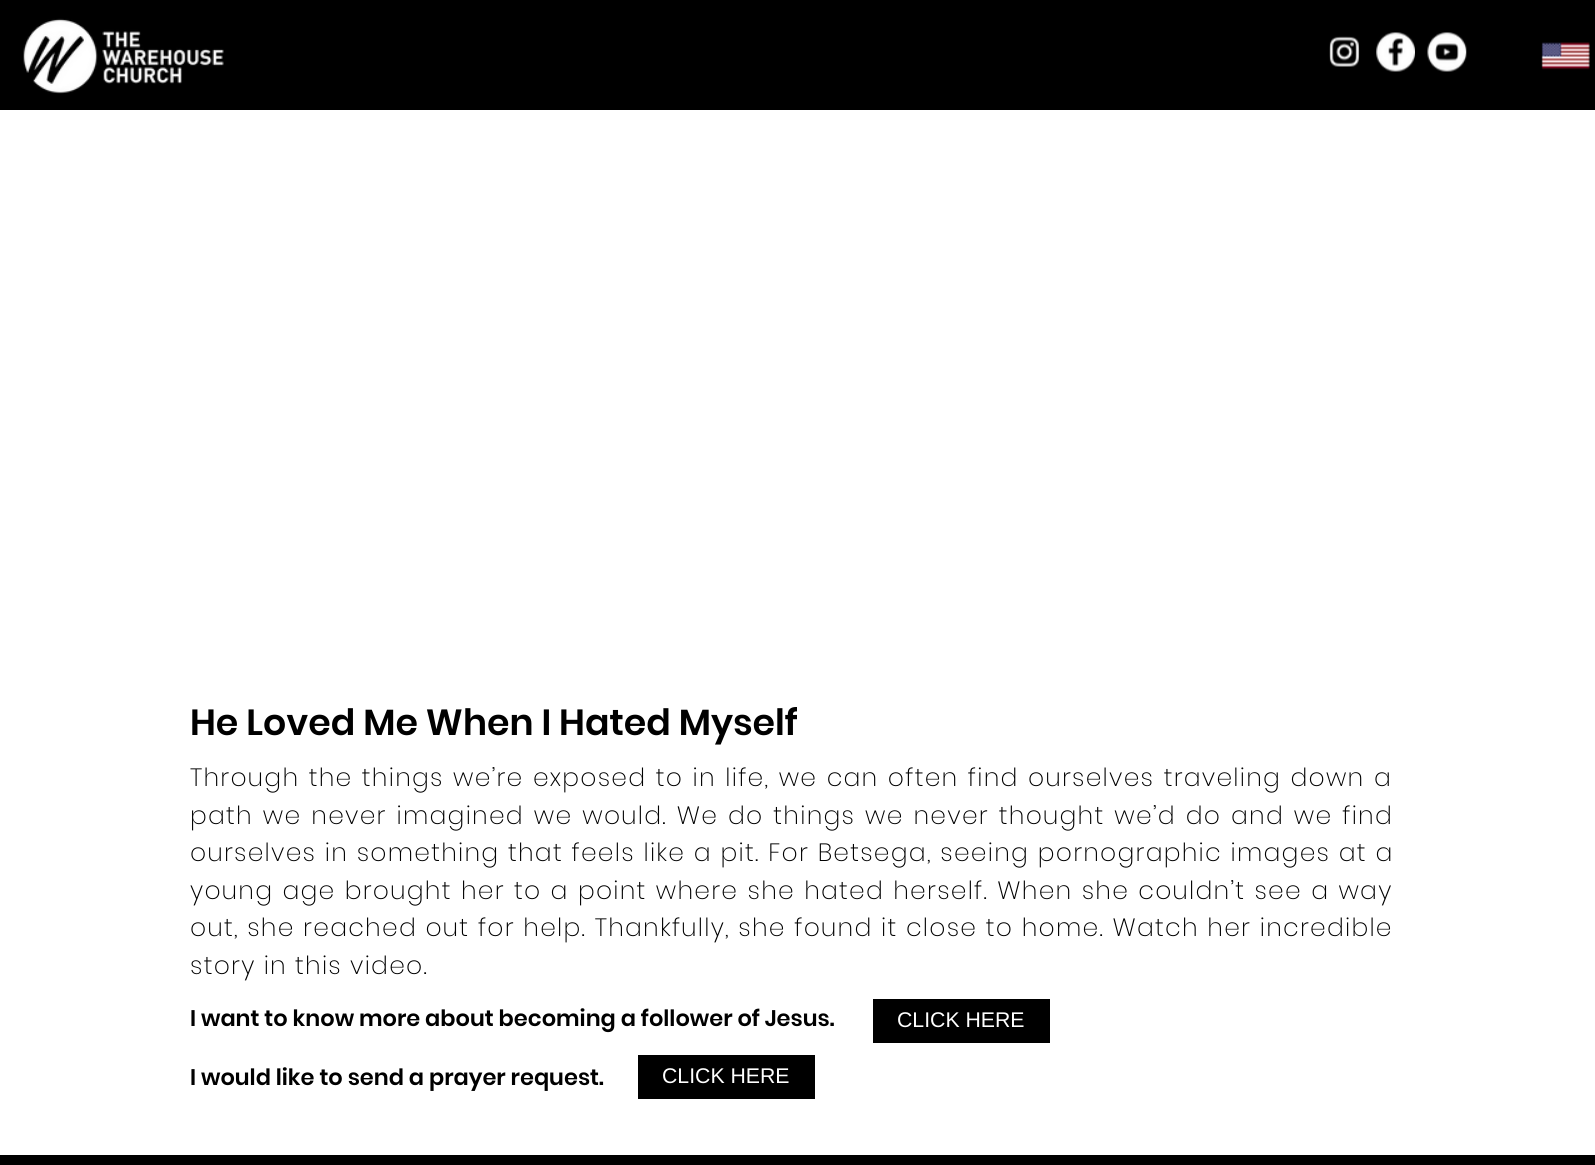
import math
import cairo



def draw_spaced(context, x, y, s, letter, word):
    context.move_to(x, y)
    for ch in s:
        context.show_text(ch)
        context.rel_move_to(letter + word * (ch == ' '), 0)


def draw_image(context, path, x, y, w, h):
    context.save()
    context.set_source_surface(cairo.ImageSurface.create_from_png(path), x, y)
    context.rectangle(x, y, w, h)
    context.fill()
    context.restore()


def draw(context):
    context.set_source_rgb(1, 1, 1)
    context.paint()
    context.set_source_rgb(0, 0, 0)
    context.rectangle(0, 0, 1595, 110)
    context.fill()
    draw_image(context, "images/1.png", 23, 18, 201, 76)
    draw_image(context, "images/2.png", 1329, 36, 31, 31)
    draw_image(context, "images/3.png", 1376, 32, 39, 40)
    draw_image(context, "images/4.png", 1427, 32, 40, 40)
    draw_image(context, "images/5.png", 1541, 42, 49, 28)
    context.rectangle(873, 999, 177, 44)
    context.fill()
    context.rectangle(638, 1055, 177, 44)
    context.fill()
    context.rectangle(0, 1155, 1595, 10)
    context.fill()
    context.select_font_face("Poppins SemiBold")
    context.set_font_size(36.25)
    context.move_to(190, 735)
    context.show_text("He Loved Me When I Hated Myself")
    context.select_font_face("Poppins ExtraLight")
    context.set_font_size(25)
    draw_spaced(context, 190, 786, "Through the things we’re exposed to in life, we can often find ourselves traveling down a", 1.25, 1.3)
    draw_spaced(context, 190, 824, "path we never imagined we would. We do things we never thought we’d do and we find", 1.25, 1.75)
    draw_spaced(context, 190, 861, "ourselves in something that feels like a pit. For Betsega, seeing pornographic images at a", 1.25, 0.5)
    draw_spaced(context, 190, 899, "young age brought her to a point where she hated herself. When she couldn’t see a way", 1.25, 1.1)
    draw_spaced(context, 190, 936, "out, she reached out for help. Thankfully, she found it close to home. Watch her incredible", 1.25, 0.4)
    draw_spaced(context, 190, 974, "story in this video.", 1.25, 0)
    context.select_font_face("Poppins SemiBold")
    context.set_font_size(22.5)
    context.move_to(190, 1026)
    context.show_text("I want to know more about becoming a follower of Jesus.")
    context.select_font_face("Liberation Sans")
    context.set_font_size(21.25)
    context.set_source_rgb(1, 1, 1)
    context.move_to(897, 1027)
    context.show_text("CLICK HERE")
    context.select_font_face("Poppins SemiBold")
    context.set_font_size(22.5)
    context.set_source_rgb(0, 0, 0)
    context.move_to(190, 1085)
    context.show_text("I would like to send a prayer request.")
    context.select_font_face("Liberation Sans")
    context.set_font_size(21.25)
    context.set_source_rgb(1, 1, 1)
    context.move_to(662, 1083)
    context.show_text("CLICK HERE")


surface = cairo.ImageSurface(cairo.Format.RGB24, 1595, 1165)
context = cairo.Context(surface)
options = cairo.FontOptions()
options.set_hint_metrics(cairo.HintMetrics.OFF)
options.set_hint_style(cairo.HintStyle.NONE)
context.set_font_options(options)
context.set_miter_limit(4)
draw(context)
surface.write_to_png("out.png")
